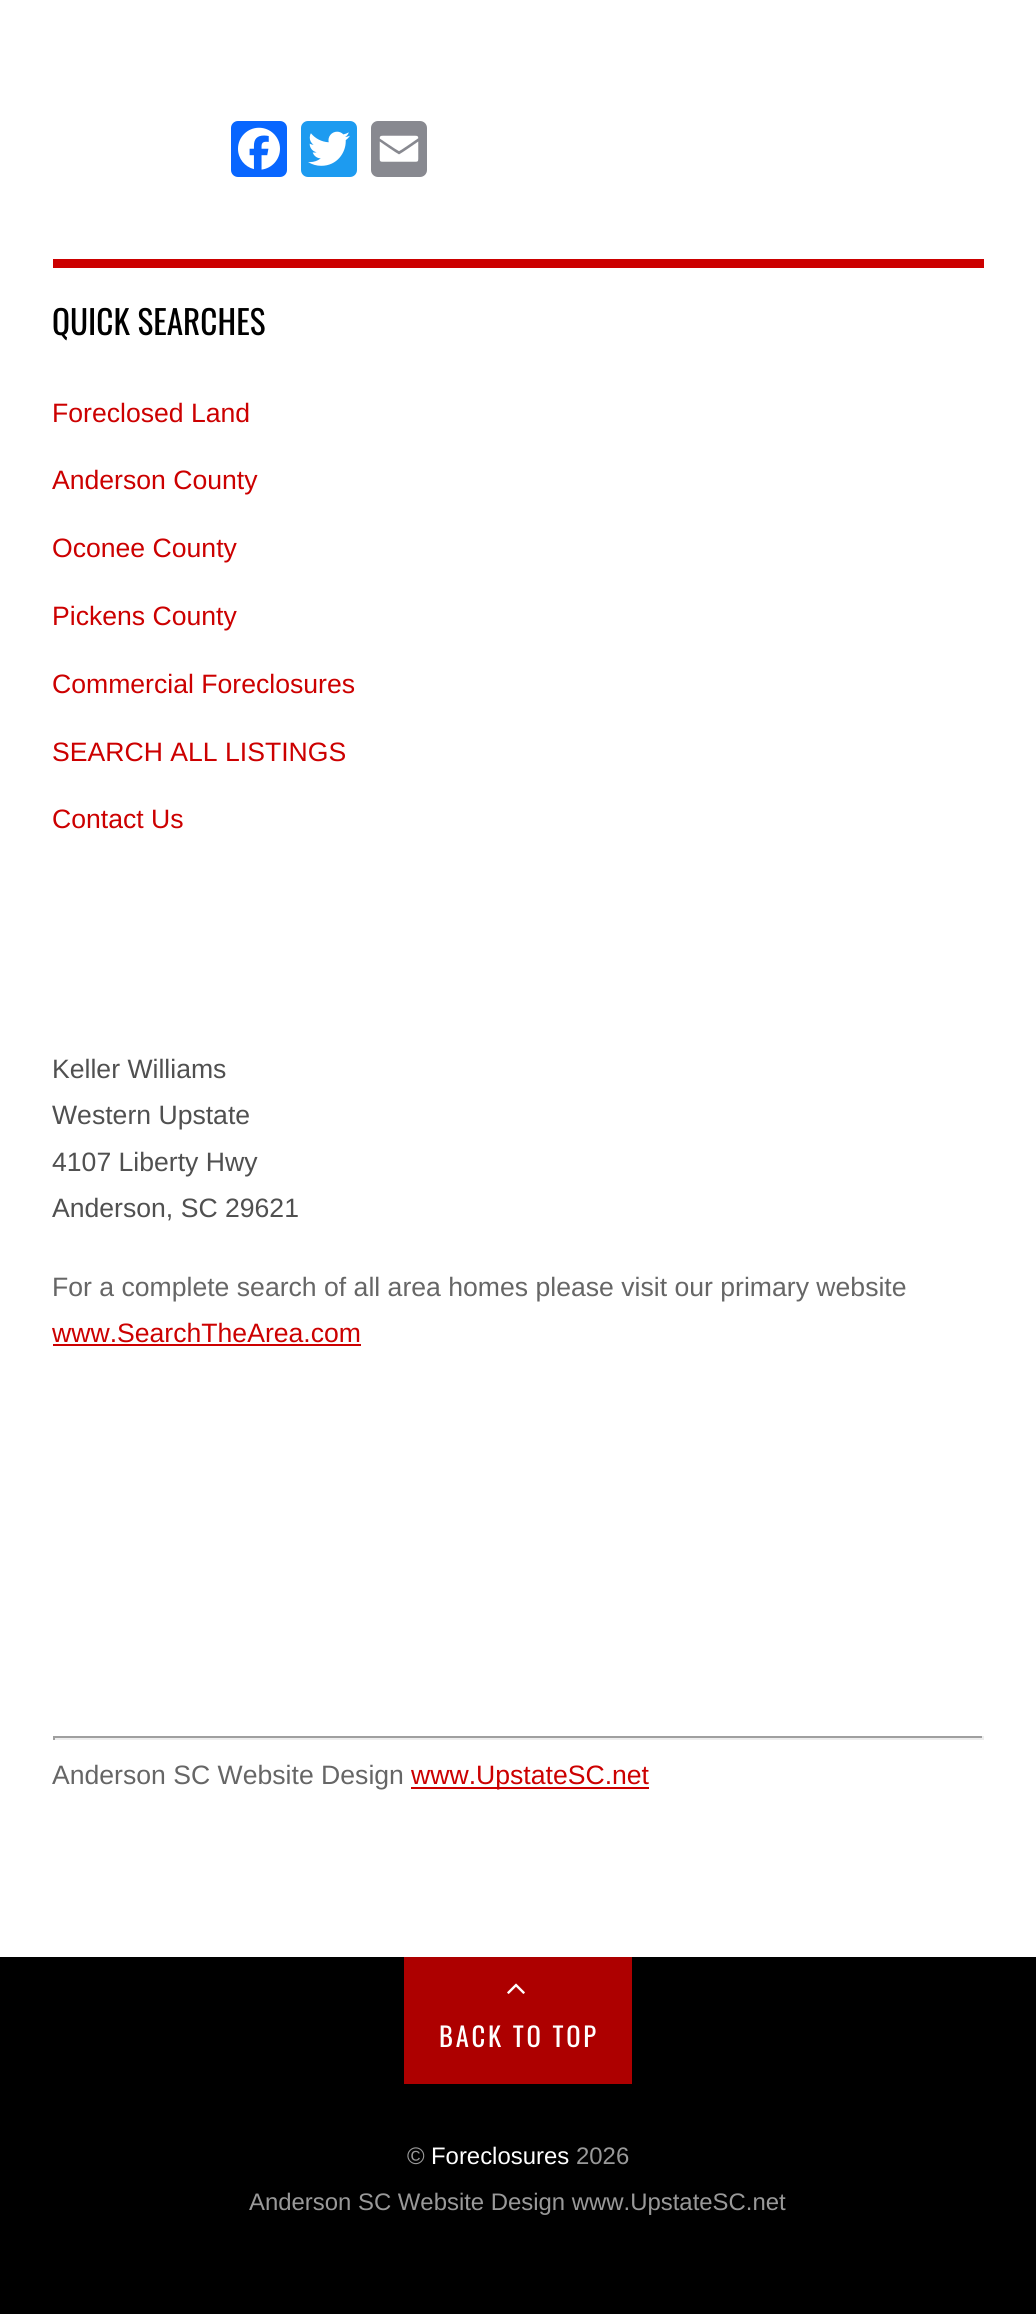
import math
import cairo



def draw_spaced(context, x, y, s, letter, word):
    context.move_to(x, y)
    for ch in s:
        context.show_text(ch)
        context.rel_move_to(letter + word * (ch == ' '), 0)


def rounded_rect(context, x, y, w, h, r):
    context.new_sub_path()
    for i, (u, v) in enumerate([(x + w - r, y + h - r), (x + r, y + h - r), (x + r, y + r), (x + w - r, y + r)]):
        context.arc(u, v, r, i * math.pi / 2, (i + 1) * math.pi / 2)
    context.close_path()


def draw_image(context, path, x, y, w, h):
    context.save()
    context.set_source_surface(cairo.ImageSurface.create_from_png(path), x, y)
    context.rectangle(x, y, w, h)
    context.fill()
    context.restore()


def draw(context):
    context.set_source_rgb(1, 1, 1)
    context.paint()
    context.set_source_rgb(8 / 255, 102 / 255, 1)
    rounded_rect(context, 231, 121, 56, 56, 7)
    context.fill()
    draw_image(context, "images/1.png", 238, 127, 42, 43)
    context.set_source_rgb(29 / 255, 155 / 255, 240 / 255)
    rounded_rect(context, 301, 121, 56, 56, 7)
    context.fill()
    draw_image(context, "images/2.png", 308, 131, 42, 35)
    context.set_source_rgb(136 / 255, 137 / 255, 144 / 255)
    rounded_rect(context, 371, 121, 56, 56, 7)
    context.fill()
    draw_image(context, "images/3.png", 379, 135, 40, 27)
    context.set_source_rgb(204 / 255, 0, 0)
    context.rectangle(53, 259, 931, 9)
    context.fill()
    context.rectangle(53, 1344, 308, 2)
    context.fill()
    context.set_source_rgb(159 / 255, 159 / 255, 159 / 255)
    context.rectangle(53, 1736, 931, 2)
    context.fill()
    context.set_source_rgb(238 / 255, 238 / 255, 238 / 255)
    context.rectangle(982, 1736, 2, 4)
    context.fill()
    context.rectangle(53, 1738, 931, 2)
    context.fill()
    context.set_source_rgb(159 / 255, 159 / 255, 159 / 255)
    context.rectangle(53, 1736, 2, 4)
    context.fill()
    context.set_source_rgb(204 / 255, 0, 0)
    context.rectangle(411, 1787, 238, 2)
    context.fill()
    context.set_source_rgb(0, 0, 0)
    context.rectangle(0, 1957, 1036, 357)
    context.fill()
    context.set_source_rgb(173 / 255, 0, 0)
    context.rectangle(404, 1957, 228, 127)
    context.fill()
    draw_image(context, "images/4.png", 507, 1983, 18, 11)
    context.select_font_face("Oswald")
    context.set_font_size(33.25)
    context.set_source_rgb(0, 0, 0)
    context.move_to(52, 335)
    context.show_text("QUICK SEARCHES")
    context.select_font_face("Liberation Sans")
    context.set_font_size(26.6)
    context.set_source_rgb(204 / 255, 0, 0)
    context.move_to(52, 422)
    context.show_text("Foreclosed Land")
    context.move_to(52, 489)
    context.show_text("Anderson County")
    context.move_to(52, 557)
    context.show_text("Oconee County")
    context.move_to(52, 625)
    context.show_text("Pickens County")
    context.move_to(52, 693)
    context.show_text("Commercial Foreclosures")
    context.move_to(52, 761)
    context.show_text("SEARCH ALL LISTINGS")
    context.move_to(52, 828)
    context.show_text("Contact Us")
    context.set_source_rgb(80 / 255, 80 / 255, 80 / 255)
    context.move_to(52, 1078)
    context.show_text("Keller Williams")
    context.move_to(52, 1124)
    context.show_text("Western Upstate")
    context.move_to(52, 1171)
    context.show_text("4107 Liberty Hwy")
    context.move_to(52, 1217)
    context.show_text("Anderson, SC 29621")
    context.set_source_rgb(102 / 255, 102 / 255, 102 / 255)
    context.move_to(52, 1296)
    context.show_text("For a complete search of all area homes please visit our primary website")
    context.set_source_rgb(204 / 255, 0, 0)
    context.move_to(52, 1342)
    context.show_text("www.SearchTheArea.com")
    context.set_source_rgb(102 / 255, 102 / 255, 102 / 255)
    context.move_to(52, 1784)
    context.show_text("Anderson SC Website Design")
    context.set_source_rgb(204 / 255, 0, 0)
    context.move_to(411, 1784)
    context.show_text("www.UpstateSC.net")
    context.select_font_face("Oswald")
    context.set_source_rgb(1, 1, 1)
    draw_spaced(context, 439, 2047, "BACK TO TOP", 2.75, 0)
    context.select_font_face("Liberation Sans")
    context.set_font_size(23.9)
    context.set_source_rgb(153 / 255, 153 / 255, 153 / 255)
    context.move_to(407, 2164)
    context.show_text("©")
    context.set_source_rgb(1, 1, 1)
    context.move_to(431, 2164)
    context.show_text("Foreclosures")
    context.set_source_rgb(153 / 255, 153 / 255, 153 / 255)
    context.move_to(576, 2164)
    context.show_text("2026")
    context.move_to(249, 2210)
    context.show_text("Anderson SC Website Design www.UpstateSC.net")


surface = cairo.ImageSurface(cairo.Format.RGB24, 1036, 2314)
context = cairo.Context(surface)
options = cairo.FontOptions()
options.set_hint_metrics(cairo.HintMetrics.OFF)
options.set_hint_style(cairo.HintStyle.NONE)
context.set_font_options(options)
context.set_miter_limit(4)
draw(context)
surface.write_to_png("out.png")
